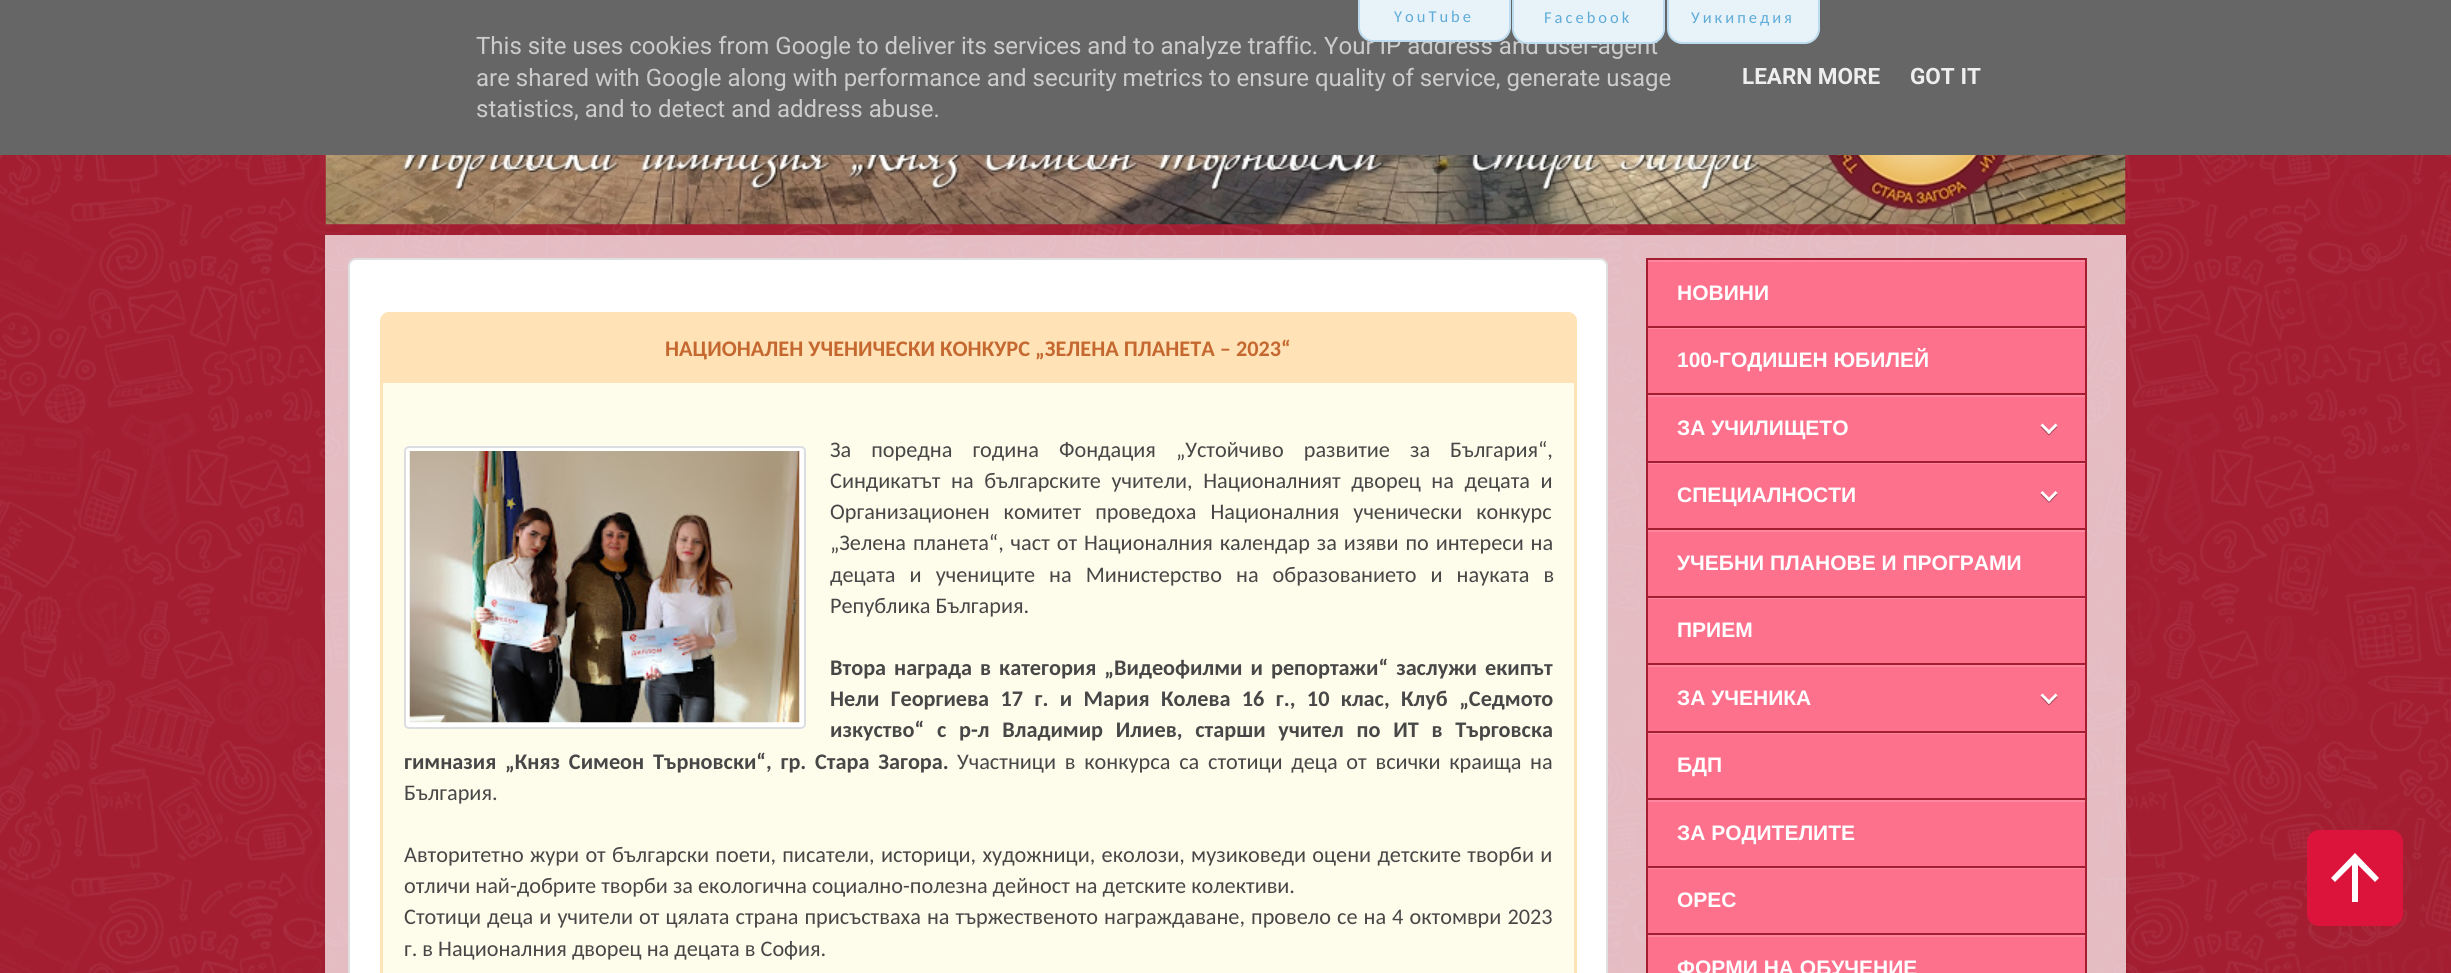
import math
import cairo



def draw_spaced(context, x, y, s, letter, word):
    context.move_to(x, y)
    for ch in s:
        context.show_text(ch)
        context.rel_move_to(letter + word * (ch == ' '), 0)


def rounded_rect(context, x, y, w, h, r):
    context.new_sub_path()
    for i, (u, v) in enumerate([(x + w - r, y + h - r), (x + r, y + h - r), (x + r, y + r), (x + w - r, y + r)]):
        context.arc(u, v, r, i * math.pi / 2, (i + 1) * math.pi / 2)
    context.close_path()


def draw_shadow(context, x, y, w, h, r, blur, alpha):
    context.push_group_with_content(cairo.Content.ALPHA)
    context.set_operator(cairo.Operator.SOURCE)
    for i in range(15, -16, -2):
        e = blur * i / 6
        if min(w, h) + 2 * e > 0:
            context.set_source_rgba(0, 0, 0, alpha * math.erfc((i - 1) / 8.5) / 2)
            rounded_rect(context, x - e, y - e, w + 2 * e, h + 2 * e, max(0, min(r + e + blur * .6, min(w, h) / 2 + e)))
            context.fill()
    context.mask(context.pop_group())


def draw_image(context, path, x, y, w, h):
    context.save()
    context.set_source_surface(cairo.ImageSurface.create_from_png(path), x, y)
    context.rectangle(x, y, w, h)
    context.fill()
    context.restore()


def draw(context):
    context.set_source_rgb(163 / 255, 30 / 255, 49 / 255)
    context.paint()
    draw_image(context, "images/1.png", 0, 155, 2451, 818)
    context.save()
    context.set_fill_rule(cairo.FillRule.EVEN_ODD)
    context.new_path()
    context.move_to(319, 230)
    context.line_to(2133, 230)
    context.line_to(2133, 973)
    context.line_to(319, 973)
    context.close_path()
    context.move_to(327.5, 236)
    context.line_to(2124.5, 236)
    context.curve_to(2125.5, 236, 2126, 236.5, 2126, 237.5)
    context.line_to(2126, 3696)
    context.line_to(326, 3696)
    context.line_to(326, 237.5)
    context.curve_to(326, 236.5, 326.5, 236, 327.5, 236)
    context.close_path()
    context.clip()
    context.set_source_rgb(0, 0, 0)
    draw_shadow(context, 326, 237, 1800, 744, 1.5, 2, 0.15)
    context.restore()
    context.set_source_rgba(1, 1, 1, 0.7)
    context.rectangle(325, 235, 1801, 738)
    context.fill()
    context.set_source_rgb(1, 1, 1)
    rounded_rect(context, 349, 259, 1258, 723, 7)
    context.fill_preserve()
    context.set_source_rgb(223 / 255, 223 / 255, 223 / 255)
    context.stroke()
    context.set_source_rgb(254 / 255, 252 / 255, 234 / 255)
    rounded_rect(context, 381.5, 313.5, 1194, 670, 7.5)
    context.fill_preserve()
    context.set_source_rgb(1, 226 / 255, 182 / 255)
    context.set_line_width(3)
    context.stroke()
    context.new_path()
    context.move_to(389, 315)
    context.line_to(1568, 315)
    context.curve_to(1571.5, 315, 1574, 317.5, 1574, 321)
    context.line_to(1574, 383)
    context.line_to(383, 383)
    context.line_to(383, 321)
    context.curve_to(383, 317.5, 385.5, 315, 389, 315)
    context.close_path()
    context.fill()
    context.set_source_rgb(1, 1, 1)
    rounded_rect(context, 405, 447, 400, 281, 4)
    context.fill_preserve()
    context.set_source_rgb(218 / 255, 222 / 255, 225 / 255)
    context.set_line_width(2)
    context.stroke()
    draw_image(context, "images/2.png", 409, 451, 391, 272)
    context.set_source_rgb(102 / 255, 102 / 255, 102 / 255)
    context.rectangle(0, 0, 2451, 155)
    context.fill()
    context.set_source_rgb(231 / 255, 242 / 255, 249 / 255)
    context.new_path()
    context.move_to(1668, -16)
    context.line_to(1819, -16)
    context.line_to(1819, 29)
    context.curve_to(1819, 36.5, 1812.5, 43, 1805, 43)
    context.line_to(1682, 43)
    context.curve_to(1674.5, 43, 1668, 36.5, 1668, 29)
    context.close_path()
    context.fill_preserve()
    context.set_source_rgb(189 / 255, 220 / 255, 239 / 255)
    context.stroke()
    context.set_source_rgb(254 / 255, 113 / 255, 141 / 255)
    context.rectangle(1648, 262, 437, 64)
    context.fill()
    context.set_source_rgb(254 / 255, 134 / 255, 158 / 255)
    context.rectangle(1647, 260, 438, 2)
    context.fill()
    context.set_source_rgb(163 / 255, 30 / 255, 49 / 255)
    context.rectangle(1646, 258, 441, 2)
    context.fill()
    context.rectangle(2085, 258, 2, 68)
    context.fill()
    context.rectangle(1646, 258, 2, 68)
    context.fill()
    context.set_source_rgb(254 / 255, 113 / 255, 141 / 255)
    context.rectangle(1648, 329, 437, 64)
    context.fill()
    context.set_source_rgb(254 / 255, 134 / 255, 158 / 255)
    context.rectangle(1647, 328, 438, 1)
    context.fill()
    context.set_source_rgb(163 / 255, 30 / 255, 49 / 255)
    context.rectangle(1646, 326, 441, 2)
    context.fill()
    context.rectangle(2085, 326, 2, 67)
    context.fill()
    context.rectangle(1646, 326, 2, 67)
    context.fill()
    context.set_source_rgb(254 / 255, 113 / 255, 141 / 255)
    context.rectangle(1648, 397, 437, 64)
    context.fill()
    context.set_source_rgb(254 / 255, 134 / 255, 158 / 255)
    context.rectangle(1647, 395, 438, 2)
    context.fill()
    context.set_source_rgb(163 / 255, 30 / 255, 49 / 255)
    context.rectangle(1646, 393, 441, 2)
    context.fill()
    context.rectangle(2085, 393, 2, 68)
    context.fill()
    context.rectangle(1646, 393, 2, 68)
    context.fill()
    context.set_source_rgb(165 / 255, 73 / 255, 92 / 255)
    context.new_path()
    context.move_to(2049, 435.5)
    context.line_to(2040.5, 427)
    context.line_to(2042.5, 425)
    context.line_to(2049, 431.5)
    context.close_path()
    context.move_to(2057.5, 427)
    context.line_to(2049, 435.5)
    context.line_to(2049, 431.5)
    context.line_to(2055.5, 425)
    context.close_path()
    context.fill()
    context.set_source_rgb(1, 1, 1)
    context.new_path()
    context.move_to(2049, 434)
    context.line_to(2040.5, 425.5)
    context.line_to(2042.5, 423.5)
    context.line_to(2051, 432)
    context.close_path()
    context.fill()
    context.new_path()
    context.move_to(2049, 434)
    context.line_to(2047, 432)
    context.line_to(2055.5, 423.5)
    context.line_to(2057.5, 425.5)
    context.close_path()
    context.fill()
    context.set_source_rgb(254 / 255, 113 / 255, 141 / 255)
    context.rectangle(1648, 464, 437, 64)
    context.fill()
    context.set_source_rgb(254 / 255, 134 / 255, 158 / 255)
    context.rectangle(1647, 463, 438, 1)
    context.fill()
    context.set_source_rgb(163 / 255, 30 / 255, 49 / 255)
    context.rectangle(1646, 461, 441, 2)
    context.fill()
    context.rectangle(2085, 461, 2, 67)
    context.fill()
    context.rectangle(1646, 461, 2, 67)
    context.fill()
    context.set_source_rgb(165 / 255, 73 / 255, 92 / 255)
    context.new_path()
    context.move_to(2049, 503)
    context.line_to(2040.5, 494.5)
    context.line_to(2042.5, 492.5)
    context.line_to(2049, 499)
    context.close_path()
    context.move_to(2057.5, 494.5)
    context.line_to(2049, 503)
    context.line_to(2049, 499)
    context.line_to(2055.5, 492.5)
    context.close_path()
    context.fill()
    context.set_source_rgb(1, 1, 1)
    context.new_path()
    context.move_to(2049, 501.5)
    context.line_to(2040.5, 493)
    context.line_to(2042.5, 491)
    context.line_to(2051, 499.5)
    context.close_path()
    context.fill()
    context.new_path()
    context.move_to(2049, 501.5)
    context.line_to(2047, 499.5)
    context.line_to(2055.5, 491)
    context.line_to(2057.5, 493)
    context.close_path()
    context.fill()
    context.set_source_rgb(254 / 255, 113 / 255, 141 / 255)
    context.rectangle(1648, 532, 437, 64)
    context.fill()
    context.set_source_rgb(254 / 255, 134 / 255, 158 / 255)
    context.rectangle(1647, 530, 438, 2)
    context.fill()
    context.set_source_rgb(163 / 255, 30 / 255, 49 / 255)
    context.rectangle(1646, 528, 441, 2)
    context.fill()
    context.rectangle(2085, 528, 2, 68)
    context.fill()
    context.rectangle(1646, 528, 2, 68)
    context.fill()
    context.set_source_rgb(254 / 255, 113 / 255, 141 / 255)
    context.rectangle(1648, 599, 437, 64)
    context.fill()
    context.set_source_rgb(254 / 255, 134 / 255, 158 / 255)
    context.rectangle(1647, 598, 438, 1)
    context.fill()
    context.set_source_rgb(163 / 255, 30 / 255, 49 / 255)
    context.rectangle(1646, 596, 441, 2)
    context.fill()
    context.rectangle(2085, 596, 2, 67)
    context.fill()
    context.rectangle(1646, 596, 2, 67)
    context.fill()
    context.set_source_rgb(254 / 255, 113 / 255, 141 / 255)
    context.rectangle(1648, 667, 437, 64)
    context.fill()
    context.set_source_rgb(254 / 255, 134 / 255, 158 / 255)
    context.rectangle(1647, 665, 438, 2)
    context.fill()
    context.set_source_rgb(163 / 255, 30 / 255, 49 / 255)
    context.rectangle(1646, 663, 441, 2)
    context.fill()
    context.rectangle(2085, 663, 2, 68)
    context.fill()
    context.rectangle(1646, 663, 2, 68)
    context.fill()
    context.set_source_rgb(165 / 255, 73 / 255, 92 / 255)
    context.new_path()
    context.move_to(2049, 705.5)
    context.line_to(2040.5, 697)
    context.line_to(2042.5, 695)
    context.line_to(2049, 701.5)
    context.close_path()
    context.move_to(2057.5, 697)
    context.line_to(2049, 705.5)
    context.line_to(2049, 701.5)
    context.line_to(2055.5, 695)
    context.close_path()
    context.fill()
    context.set_source_rgb(1, 1, 1)
    context.new_path()
    context.move_to(2049, 704)
    context.line_to(2040.5, 695.5)
    context.line_to(2042.5, 693.5)
    context.line_to(2051, 702)
    context.close_path()
    context.fill()
    context.new_path()
    context.move_to(2049, 704)
    context.line_to(2047, 702)
    context.line_to(2055.5, 693.5)
    context.line_to(2057.5, 695.5)
    context.close_path()
    context.fill()
    context.set_source_rgb(254 / 255, 113 / 255, 141 / 255)
    context.rectangle(1648, 734, 437, 64)
    context.fill()
    context.set_source_rgb(254 / 255, 134 / 255, 158 / 255)
    context.rectangle(1647, 733, 438, 1)
    context.fill()
    context.set_source_rgb(163 / 255, 30 / 255, 49 / 255)
    context.rectangle(1646, 731, 441, 2)
    context.fill()
    context.rectangle(2085, 731, 2, 67)
    context.fill()
    context.rectangle(1646, 731, 2, 67)
    context.fill()
    context.set_source_rgb(254 / 255, 113 / 255, 141 / 255)
    context.rectangle(1648, 802, 437, 64)
    context.fill()
    context.set_source_rgb(254 / 255, 134 / 255, 158 / 255)
    context.rectangle(1647, 800, 438, 2)
    context.fill()
    context.set_source_rgb(163 / 255, 30 / 255, 49 / 255)
    context.rectangle(1646, 798, 441, 2)
    context.fill()
    context.rectangle(2085, 798, 2, 68)
    context.fill()
    context.rectangle(1646, 798, 2, 68)
    context.fill()
    context.set_source_rgb(254 / 255, 113 / 255, 141 / 255)
    context.rectangle(1648, 869, 437, 64)
    context.fill()
    context.set_source_rgb(254 / 255, 134 / 255, 158 / 255)
    context.rectangle(1647, 868, 438, 1)
    context.fill()
    context.set_source_rgb(163 / 255, 30 / 255, 49 / 255)
    context.rectangle(1646, 866, 441, 2)
    context.fill()
    context.rectangle(2085, 866, 2, 67)
    context.fill()
    context.rectangle(1646, 866, 2, 67)
    context.fill()
    context.set_source_rgb(254 / 255, 113 / 255, 141 / 255)
    context.rectangle(1648, 937, 437, 36)
    context.fill()
    context.set_source_rgb(254 / 255, 134 / 255, 158 / 255)
    context.rectangle(1647, 935, 438, 2)
    context.fill()
    context.set_source_rgb(163 / 255, 30 / 255, 49 / 255)
    context.rectangle(1646, 933, 441, 2)
    context.fill()
    context.rectangle(2085, 933, 2, 40)
    context.fill()
    context.rectangle(1646, 933, 2, 40)
    context.fill()
    context.set_source_rgb(220 / 255, 20 / 255, 60 / 255)
    rounded_rect(context, 2307, 830, 96, 96, 12)
    context.fill()
    context.set_source_rgb(1, 1, 1)
    context.new_path()
    context.move_to(2331, 878)
    context.line_to(2355, 853)
    context.line_to(2379, 878)
    context.line_to(2375, 882)
    context.line_to(2358, 865)
    context.line_to(2358, 902)
    context.line_to(2352, 902)
    context.line_to(2352, 865)
    context.line_to(2335, 882)
    context.close_path()
    context.fill()
    draw_image(context, "images/3.png", 325, 155, 1801, 70)
    context.select_font_face("Carlito", cairo.FontSlant.NORMAL, cairo.FontWeight.BOLD)
    context.set_font_size(22.27)
    context.set_source_rgb(197 / 255, 104 / 255, 48 / 255)
    context.move_to(665, 356)
    context.show_text("НАЦИОНАЛЕН УЧЕНИЧЕСКИ КОНКУРС „ЗЕЛЕНА ПЛАНЕТА – 2023“")
    context.select_font_face("Carlito")
    context.set_source_rgb(71 / 255, 71 / 255, 71 / 255)
    draw_spaced(context, 830, 457, "За поредна година Фондация „Устойчиво развитие за България“,", 0, 15)
    draw_spaced(context, 830, 488, "Синдикатът на българските учители, Националният дворец на децата и", 0, 5.5)
    draw_spaced(context, 830, 519, "Организационен комитет проведоха Националния ученически конкурс", 0, 9)
    draw_spaced(context, 830, 550, "„Зелена планета“, част от Националния календар за изяви по интереси на", 0, 1.9)
    draw_spaced(context, 830, 582, "децата и учениците на Министерство на образованието и науката в", 0, 9)
    context.move_to(830, 613)
    context.show_text("Република България.")
    context.select_font_face("Carlito", cairo.FontSlant.NORMAL, cairo.FontWeight.BOLD)
    draw_spaced(context, 830, 675, "Втора награда в категория „Видеофилми и репортажи“ заслужи екипът", 0, 3)
    draw_spaced(context, 830, 706, "Нели Георгиева 17 г. и Мария Колева 16 г., 10 клас, Клуб „Седмото", 0, 6.4)
    draw_spaced(context, 830, 737, "изкуство“ с р-л Владимир Илиев, старши учител по ИТ в Търговска", 0, 7.75)
    draw_spaced(context, 404, 769, "гимназия „Княз Симеон Търновски“, гр. Стара Загора.", 0, 3.75)
    context.select_font_face("Carlito")
    draw_spaced(context, 957, 769, "Участници в конкурса са стотици деца от всички краища на", 0, 3.75)
    context.move_to(404, 800)
    context.show_text("България.")
    draw_spaced(context, 404, 862, "Авторитетно жури от български поети, писатели, историци, художници, еколози, музиковеди оцени детските творби и", 0, 1.25)
    context.move_to(404, 893)
    context.show_text("отличи най-добрите творби за екологична социално-полезна дейност на детските колективи.")
    draw_spaced(context, 404, 924, "Стотици деца и учители от цялата страна присъстваха на тържественото награждаване, провело се на 4 октомври 2023", 0, 1)
    context.move_to(404, 956)
    context.show_text("г. в Националния дворец на децата в София.")
    context.set_font_size(16.5)
    context.set_source_rgb(96 / 255, 172 / 255, 216 / 255)
    draw_spaced(context, 1691, 23, "Уикипедия", 3, 0)
    context.select_font_face("Liberation Sans", cairo.FontSlant.NORMAL, cairo.FontWeight.BOLD)
    context.set_font_size(21)
    context.set_source_rgb(1, 1, 1)
    context.move_to(1677, 300)
    context.show_text("НОВИНИ")
    context.move_to(1677, 367)
    context.show_text("100-ГОДИШЕН ЮБИЛЕЙ")
    context.move_to(1677, 435)
    context.show_text("ЗА УЧИЛИЩЕТО")
    context.move_to(1677, 502)
    context.show_text("СПЕЦИАЛНОСТИ")
    context.move_to(1677, 570)
    context.show_text("УЧЕБНИ ПЛАНОВЕ И ПРОГРАМИ")
    context.move_to(1677, 637)
    context.show_text("ПРИЕМ")
    context.move_to(1677, 705)
    context.show_text("ЗА УЧЕНИКА")
    context.move_to(1677, 772)
    context.show_text("БДП")
    context.move_to(1677, 840)
    context.show_text("ЗА РОДИТЕЛИТЕ")
    context.move_to(1677, 907)
    context.show_text("ОРЕС")
    context.move_to(1677, 975)
    context.show_text("ФОРМИ НА ОБУЧЕНИЕ")
    context.select_font_face("Roboto")
    context.set_font_size(24)
    context.set_source_rgb(204 / 255, 204 / 255, 204 / 255)
    context.move_to(476, 54)
    context.show_text("This site uses cookies from Google to deliver its services and to analyze traffic. Your IP address and user-agent")
    context.set_source_rgb(231 / 255, 242 / 255, 249 / 255)
    context.new_path()
    context.move_to(1513, -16)
    context.line_to(1664, -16)
    context.line_to(1664, 29)
    context.curve_to(1664, 36.5, 1657.5, 43, 1650, 43)
    context.line_to(1527, 43)
    context.curve_to(1519.5, 43, 1513, 36.5, 1513, 29)
    context.close_path()
    context.fill_preserve()
    context.set_source_rgb(189 / 255, 220 / 255, 239 / 255)
    context.stroke()
    context.select_font_face("Carlito")
    context.set_font_size(16.5)
    context.set_source_rgb(96 / 255, 172 / 255, 216 / 255)
    draw_spaced(context, 1544, 23, "Facebook", 3, 0)
    context.set_source_rgb(231 / 255, 242 / 255, 249 / 255)
    context.new_path()
    context.move_to(1359, -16)
    context.line_to(1510, -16)
    context.line_to(1510, 27)
    context.curve_to(1510, 34.5, 1503.5, 41, 1496, 41)
    context.line_to(1373, 41)
    context.curve_to(1365.5, 41, 1359, 34.5, 1359, 27)
    context.close_path()
    context.fill_preserve()
    context.set_source_rgb(189 / 255, 220 / 255, 239 / 255)
    context.stroke()
    context.set_source_rgb(96 / 255, 172 / 255, 216 / 255)
    draw_spaced(context, 1394, 22, "YouTube", 3, 0)
    context.select_font_face("Roboto")
    context.set_font_size(24)
    context.set_source_rgb(204 / 255, 204 / 255, 204 / 255)
    context.move_to(476, 86)
    context.show_text("are shared with Google along with performance and security metrics to ensure quality of service, generate usage")
    context.move_to(476, 117)
    context.show_text("statistics, and to detect and address abuse.")
    context.select_font_face("Roboto", cairo.FontSlant.NORMAL, cairo.FontWeight.BOLD)
    context.set_font_size(22.5)
    context.set_source_rgb(238 / 255, 238 / 255, 238 / 255)
    context.move_to(1742, 84)
    context.show_text("LEARN MORE")
    context.move_to(1910, 84)
    context.show_text("GOT IT")


surface = cairo.ImageSurface(cairo.Format.RGB24, 2451, 973)
context = cairo.Context(surface)
options = cairo.FontOptions()
options.set_hint_metrics(cairo.HintMetrics.OFF)
options.set_hint_style(cairo.HintStyle.NONE)
context.set_font_options(options)
context.set_miter_limit(4)
draw(context)
surface.write_to_png("out.png")
